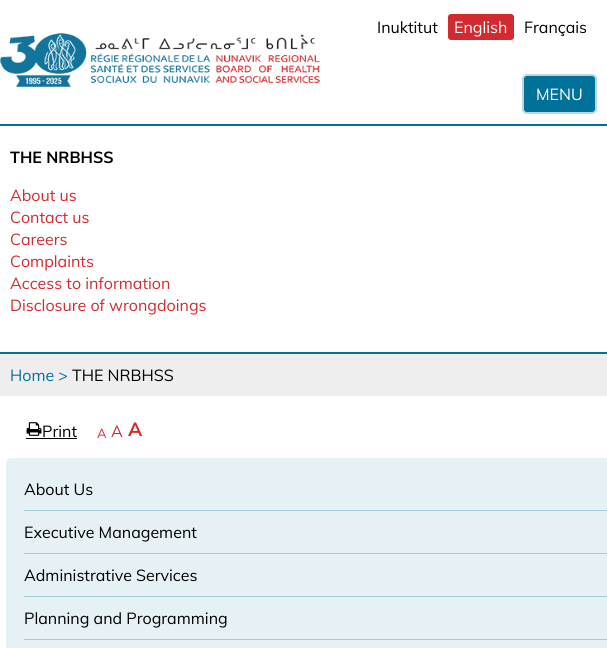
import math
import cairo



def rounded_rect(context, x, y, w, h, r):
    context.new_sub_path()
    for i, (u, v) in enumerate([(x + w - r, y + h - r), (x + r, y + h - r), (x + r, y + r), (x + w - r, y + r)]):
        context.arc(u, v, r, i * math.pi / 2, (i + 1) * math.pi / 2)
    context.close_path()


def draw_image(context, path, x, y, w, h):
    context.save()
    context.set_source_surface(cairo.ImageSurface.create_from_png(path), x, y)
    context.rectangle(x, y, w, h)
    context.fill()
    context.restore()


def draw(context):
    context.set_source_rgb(1, 1, 1)
    context.paint()
    context.set_source_rgb(0, 114 / 255, 152 / 255)
    context.rectangle(0, 124, 607, 2)
    context.fill()
    context.set_source_rgb(209 / 255, 42 / 255, 47 / 255)
    rounded_rect(context, 448, 14, 66, 26, 3)
    context.fill()
    draw_image(context, "images/1.png", 0, 33, 320, 55)
    context.set_source_rgb(0, 114 / 255, 152 / 255)
    rounded_rect(context, 523, 75, 73, 38, 4)
    context.fill_preserve()
    context.set_source_rgb(183 / 255, 216 / 255, 226 / 255)
    context.stroke()
    context.set_source_rgb(0, 114 / 255, 152 / 255)
    context.rectangle(0, 352, 607, 2)
    context.fill()
    context.set_source_rgb(238 / 255, 238 / 255, 238 / 255)
    context.rectangle(0, 354, 607, 42)
    context.fill()
    context.set_source_rgb(0, 0, 0)
    context.rectangle(26, 438, 51, 1)
    context.fill()
    context.set_source_rgb(229 / 255, 241 / 255, 244 / 255)
    rounded_rect(context, 6, 458, 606, 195, 5)
    context.fill()
    context.set_source_rgb(163 / 255, 204 / 255, 218 / 255)
    context.rectangle(24, 510, 583, 1)
    context.fill()
    context.rectangle(24, 553, 583, 1)
    context.fill()
    context.rectangle(24, 596, 583, 1)
    context.fill()
    context.rectangle(24, 639, 583, 1)
    context.fill()
    context.select_font_face("Muli")
    context.set_font_size(16)
    context.set_source_rgb(0, 0, 0)
    context.move_to(377, 33)
    context.show_text("Inuktitut")
    context.set_source_rgb(1, 1, 1)
    context.move_to(454, 33)
    context.show_text("English")
    context.set_source_rgb(0, 0, 0)
    context.move_to(524, 33)
    context.show_text("Français")
    context.set_source_rgb(1, 1, 1)
    context.move_to(536, 100)
    context.show_text("MENU")
    context.select_font_face("Muli", cairo.FontSlant.NORMAL, cairo.FontWeight.BOLD)
    context.set_source_rgb(0, 0, 0)
    context.move_to(10, 163)
    context.show_text("THE NRBHSS")
    context.select_font_face("Muli")
    context.set_source_rgb(209 / 255, 42 / 255, 47 / 255)
    context.move_to(10, 201)
    context.show_text("About us")
    context.move_to(10, 223)
    context.show_text("Contact us")
    context.move_to(10, 245)
    context.show_text("Careers")
    context.move_to(10, 267)
    context.show_text("Complaints")
    context.move_to(10, 289)
    context.show_text("Access to information")
    context.move_to(10, 311)
    context.show_text("Disclosure of wrongdoings")
    context.set_source_rgb(0, 114 / 255, 152 / 255)
    context.move_to(10, 381)
    context.show_text("Home >")
    context.set_source_rgb(0, 0, 0)
    context.move_to(72, 381)
    context.show_text("THE NRBHSS")
    context.select_font_face("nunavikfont")
    context.move_to(26, 437)
    context.show_text("e")
    context.select_font_face("Muli")
    context.move_to(42, 437)
    context.show_text("Print")
    context.set_font_size(13)
    context.set_source_rgb(209 / 255, 42 / 255, 47 / 255)
    context.move_to(97, 438)
    context.show_text("A")
    context.set_font_size(16)
    context.move_to(111, 437)
    context.show_text("A")
    context.select_font_face("Muli", cairo.FontSlant.NORMAL, cairo.FontWeight.BOLD)
    context.set_font_size(19)
    context.move_to(128, 436)
    context.show_text("A")
    context.select_font_face("Muli")
    context.set_font_size(16)
    context.set_source_rgb(0, 0, 0)
    context.move_to(24, 495)
    context.show_text("About Us")
    context.move_to(24, 538)
    context.show_text("Executive Management")
    context.move_to(24, 581)
    context.show_text("Administrative Services")
    context.move_to(24, 624)
    context.show_text("Planning and Programming")


surface = cairo.ImageSurface(cairo.Format.RGB24, 607, 648)
context = cairo.Context(surface)
options = cairo.FontOptions()
options.set_hint_metrics(cairo.HintMetrics.OFF)
options.set_hint_style(cairo.HintStyle.NONE)
context.set_font_options(options)
context.set_miter_limit(4)
draw(context)
surface.write_to_png("out.png")
